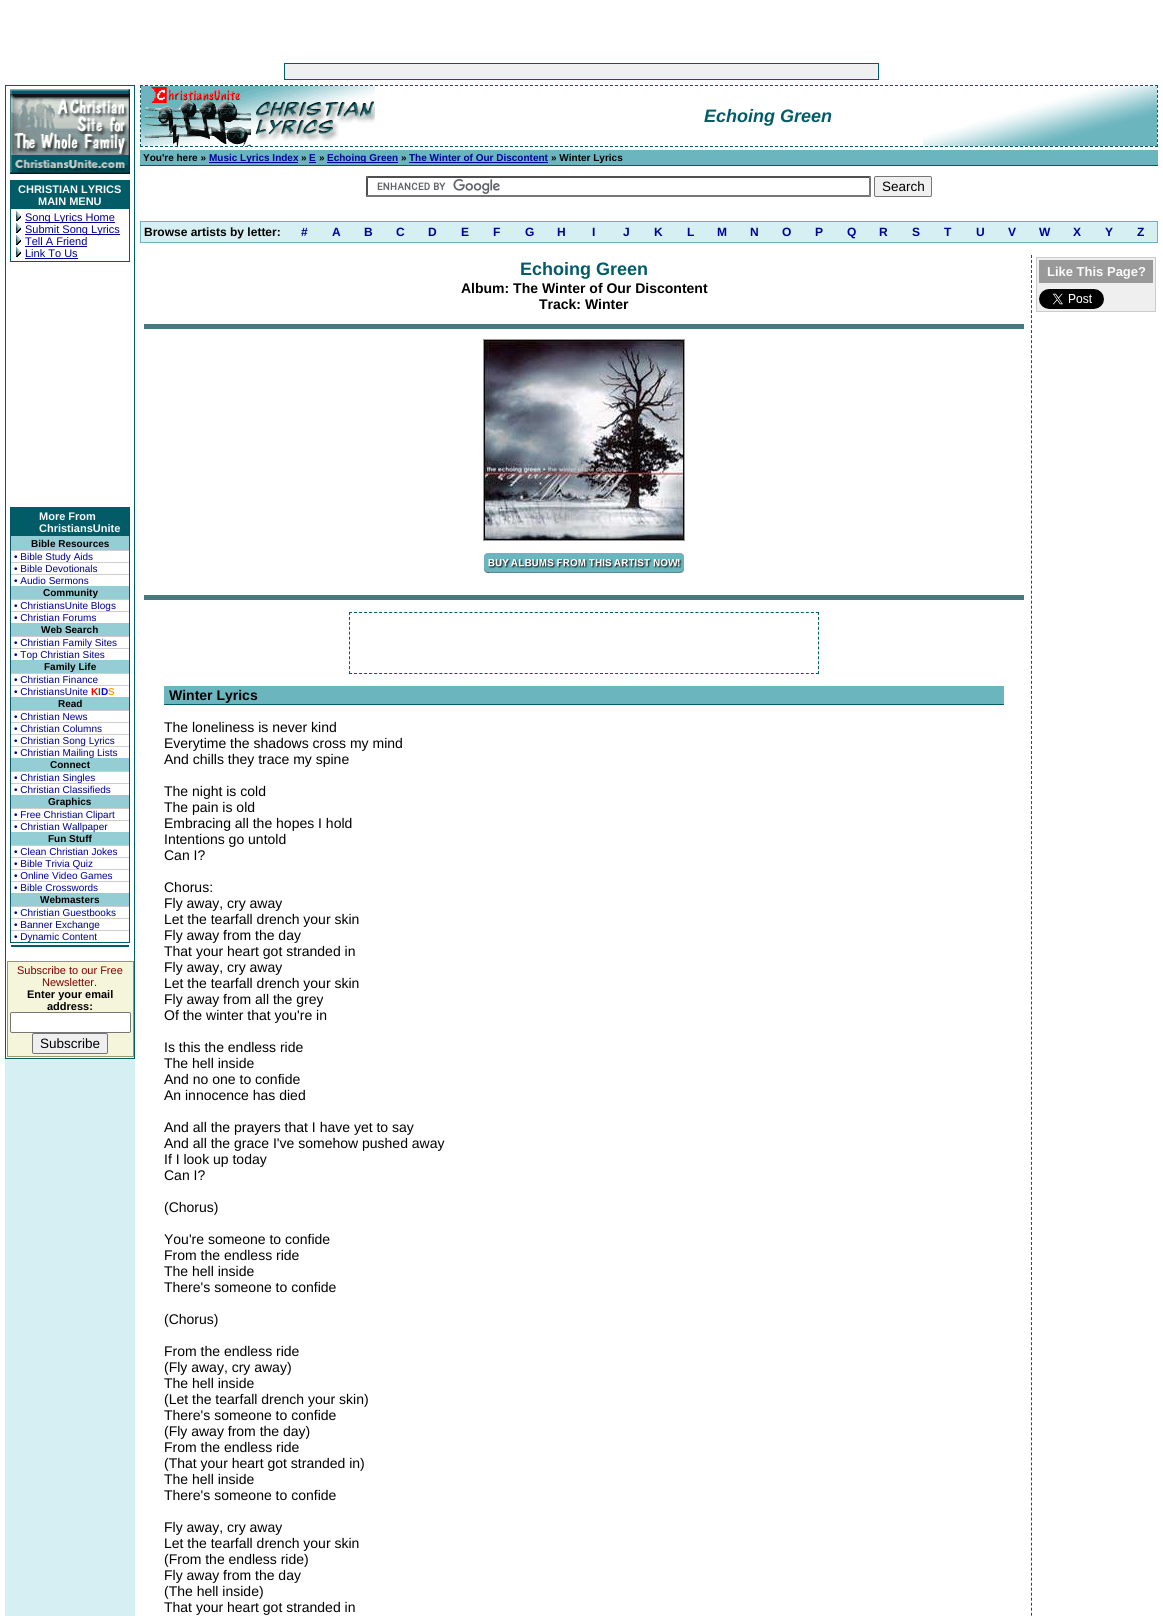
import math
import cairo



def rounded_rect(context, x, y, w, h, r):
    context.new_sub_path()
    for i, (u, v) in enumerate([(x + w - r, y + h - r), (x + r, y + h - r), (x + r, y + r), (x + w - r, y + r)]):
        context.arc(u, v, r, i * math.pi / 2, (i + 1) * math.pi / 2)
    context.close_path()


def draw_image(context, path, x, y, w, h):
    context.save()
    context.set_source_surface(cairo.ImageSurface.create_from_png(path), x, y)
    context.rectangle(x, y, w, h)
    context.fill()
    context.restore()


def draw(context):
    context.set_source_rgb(1, 1, 1)
    context.paint()
    context.set_source_rgb(2 / 255, 92 / 255, 103 / 255)
    context.rectangle(284, 63, 595, 17)
    context.fill()
    context.set_source_rgb(240 / 255, 240 / 255, 240 / 255)
    context.rectangle(285, 64, 593, 15)
    context.fill()
    context.set_source_rgb(214 / 255, 239 / 255, 242 / 255)
    context.rectangle(5, 1059, 130, 557)
    context.fill()
    context.set_source_rgb(2 / 255, 92 / 255, 103 / 255)
    context.rectangle(5, 85, 130, 974)
    context.fill()
    context.set_source_rgb(1, 1, 1)
    context.rectangle(6, 86, 128, 972)
    context.fill()
    draw_image(context, "images/1.png", 10, 89, 120, 85)
    context.set_source_rgb(2 / 255, 92 / 255, 103 / 255)
    context.rectangle(10, 180, 120, 82)
    context.fill()
    context.set_source_rgb(1, 1, 1)
    context.rectangle(11, 209, 118, 52)
    context.fill()
    draw_image(context, "images/2.png", 16, 211, 5, 10)
    context.set_source_rgb(0, 0, 153 / 255)
    context.rectangle(25, 222, 90, 1)
    context.fill()
    draw_image(context, "images/2.png", 16, 223, 5, 10)
    context.rectangle(25, 234, 95, 1)
    context.fill()
    draw_image(context, "images/2.png", 16, 235, 5, 10)
    context.rectangle(25, 246, 62, 1)
    context.fill()
    draw_image(context, "images/2.png", 16, 247, 5, 10)
    context.rectangle(25, 258, 53, 1)
    context.fill()
    context.rectangle(10.5, 507.5, 119, 435)
    context.set_source_rgb(2 / 255, 92 / 255, 103 / 255)
    context.set_line_width(1)
    context.stroke()
    context.rectangle(11, 508, 118, 28)
    context.fill()
    context.set_source_rgb(149 / 255, 205 / 255, 212 / 255)
    context.rectangle(11, 536, 118, 14)
    context.fill()
    context.set_source_rgb(205 / 255, 205 / 255, 205 / 255)
    context.rectangle(11, 550, 118, 1)
    context.fill()
    context.rectangle(11, 562, 118, 1)
    context.fill()
    context.rectangle(11, 574, 118, 1)
    context.fill()
    context.set_source_rgb(149 / 255, 205 / 255, 212 / 255)
    context.rectangle(11, 586, 118, 13)
    context.fill()
    context.set_source_rgb(205 / 255, 205 / 255, 205 / 255)
    context.rectangle(11, 599, 118, 1)
    context.fill()
    context.rectangle(11, 611, 118, 1)
    context.fill()
    context.set_source_rgb(149 / 255, 205 / 255, 212 / 255)
    context.rectangle(11, 623, 118, 13)
    context.fill()
    context.set_source_rgb(205 / 255, 205 / 255, 205 / 255)
    context.rectangle(11, 636, 118, 1)
    context.fill()
    context.rectangle(11, 648, 118, 1)
    context.fill()
    context.set_source_rgb(149 / 255, 205 / 255, 212 / 255)
    context.rectangle(11, 660, 118, 13)
    context.fill()
    context.set_source_rgb(205 / 255, 205 / 255, 205 / 255)
    context.rectangle(11, 673, 118, 1)
    context.fill()
    context.rectangle(11, 685, 118, 1)
    context.fill()
    context.set_source_rgb(149 / 255, 205 / 255, 212 / 255)
    context.rectangle(11, 697, 118, 13)
    context.fill()
    context.set_source_rgb(205 / 255, 205 / 255, 205 / 255)
    context.rectangle(11, 710, 118, 1)
    context.fill()
    context.rectangle(11, 722, 118, 1)
    context.fill()
    context.rectangle(11, 734, 118, 1)
    context.fill()
    context.rectangle(11, 746, 118, 1)
    context.fill()
    context.set_source_rgb(149 / 255, 205 / 255, 212 / 255)
    context.rectangle(11, 758, 118, 13)
    context.fill()
    context.set_source_rgb(205 / 255, 205 / 255, 205 / 255)
    context.rectangle(11, 771, 118, 1)
    context.fill()
    context.rectangle(11, 783, 118, 1)
    context.fill()
    context.set_source_rgb(149 / 255, 205 / 255, 212 / 255)
    context.rectangle(11, 795, 118, 13)
    context.fill()
    context.set_source_rgb(205 / 255, 205 / 255, 205 / 255)
    context.rectangle(11, 808, 118, 1)
    context.fill()
    context.rectangle(11, 820, 118, 1)
    context.fill()
    context.set_source_rgb(149 / 255, 205 / 255, 212 / 255)
    context.rectangle(11, 832, 118, 13)
    context.fill()
    context.set_source_rgb(205 / 255, 205 / 255, 205 / 255)
    context.rectangle(11, 845, 118, 1)
    context.fill()
    context.rectangle(11, 857, 118, 1)
    context.fill()
    context.rectangle(11, 869, 118, 1)
    context.fill()
    context.rectangle(11, 881, 118, 1)
    context.fill()
    context.set_source_rgb(149 / 255, 205 / 255, 212 / 255)
    context.rectangle(11, 893, 118, 13)
    context.fill()
    context.set_source_rgb(205 / 255, 205 / 255, 205 / 255)
    context.rectangle(11, 906, 118, 1)
    context.fill()
    context.rectangle(11, 918, 118, 1)
    context.fill()
    context.rectangle(11, 930, 118, 1)
    context.fill()
    context.set_source_rgb(2 / 255, 92 / 255, 103 / 255)
    context.rectangle(11, 945, 118, 2)
    context.fill()
    context.set_source_rgb(153 / 255, 153 / 255, 102 / 255)
    context.rectangle(7, 961, 127, 96)
    context.fill()
    context.set_source_rgb(245 / 255, 245 / 255, 220 / 255)
    context.rectangle(8, 962, 125, 94)
    context.fill()
    context.set_source_rgb(1, 1, 1)
    rounded_rect(context, 10.5, 1012.5, 120, 20, 1.5)
    context.fill_preserve()
    context.set_source_rgb(118 / 255, 118 / 255, 118 / 255)
    context.stroke()
    context.set_source_rgb(239 / 255, 239 / 255, 239 / 255)
    rounded_rect(context, 32.5, 1033.5, 75, 20, 1.5)
    context.fill_preserve()
    context.set_source_rgb(118 / 255, 118 / 255, 118 / 255)
    context.stroke()
    draw_image(context, "images/3.png", 923, 86, 234, 60)
    context.new_path()
    context.move_to(140, 85.5)
    context.line_to(1158, 85.5)
    context.set_source_rgb(2 / 255, 92 / 255, 103 / 255)
    context.set_dash([3, 2])
    context.stroke()
    context.new_path()
    context.move_to(1157.5, 85)
    context.line_to(1157.5, 147)
    context.set_dash([3, 1.92])
    context.stroke()
    context.new_path()
    context.move_to(140, 146.5)
    context.line_to(1158, 146.5)
    context.set_dash([3, 2])
    context.stroke()
    context.new_path()
    context.move_to(140.5, 85)
    context.line_to(140.5, 147)
    context.set_dash([3, 1.92])
    context.stroke()
    draw_image(context, "images/4.png", 141, 86, 234, 60)
    context.rectangle(140, 165, 1018, 1)
    context.fill()
    context.set_source_rgb(107 / 255, 181 / 255, 190 / 255)
    context.rectangle(140, 150, 1018, 15)
    context.fill()
    context.set_source_rgb(0, 0, 153 / 255)
    context.rectangle(209, 162, 89, 1)
    context.fill()
    context.rectangle(309, 162, 7, 1)
    context.fill()
    context.rectangle(327, 162, 71, 1)
    context.fill()
    context.rectangle(409, 162, 139, 1)
    context.fill()
    draw_image(context, "images/5.png", 377, 179, 123, 15)
    context.set_source_rgb(79 / 255, 79 / 255, 79 / 255)
    context.new_path()
    context.move_to(366, 176)
    context.line_to(871, 176)
    context.line_to(869, 178)
    context.line_to(368, 178)
    context.close_path()
    context.fill()
    context.set_source_rgb(118 / 255, 118 / 255, 118 / 255)
    context.new_path()
    context.move_to(871, 176)
    context.line_to(871, 197)
    context.line_to(869, 195)
    context.line_to(869, 178)
    context.close_path()
    context.fill()
    context.new_path()
    context.move_to(871, 197)
    context.line_to(366, 197)
    context.line_to(368, 195)
    context.line_to(869, 195)
    context.close_path()
    context.fill()
    context.set_source_rgb(79 / 255, 79 / 255, 79 / 255)
    context.new_path()
    context.move_to(366, 197)
    context.line_to(366, 176)
    context.line_to(368, 178)
    context.line_to(368, 195)
    context.close_path()
    context.fill()
    context.set_source_rgb(239 / 255, 239 / 255, 239 / 255)
    rounded_rect(context, 874.5, 176.5, 57, 20, 1.5)
    context.fill_preserve()
    context.set_source_rgb(118 / 255, 118 / 255, 118 / 255)
    context.set_dash([])
    context.stroke()
    context.rectangle(140.5, 221.5, 1017, 21)
    context.set_source_rgb(107 / 255, 181 / 255, 190 / 255)
    context.stroke()
    context.set_source_rgb(214 / 255, 239 / 255, 242 / 255)
    context.rectangle(141, 222, 1016, 20)
    context.fill()
    context.set_source_rgb(71 / 255, 121 / 255, 127 / 255)
    context.rectangle(144, 324, 880, 5)
    context.fill()
    context.rectangle(144, 595, 880, 5)
    context.fill()
    context.rectangle(483.5, 339.5, 201, 201)
    context.set_source_rgb(153 / 255, 153 / 255, 153 / 255)
    context.stroke()
    draw_image(context, "images/6.png", 484, 340, 200, 200)
    draw_image(context, "images/7.png", 484, 553, 200, 20)
    context.new_path()
    context.move_to(349, 612.5)
    context.line_to(819, 612.5)
    context.set_source_rgb(2 / 255, 92 / 255, 103 / 255)
    context.set_dash([3, 2.02])
    context.stroke()
    context.new_path()
    context.move_to(818.5, 612)
    context.line_to(818.5, 674)
    context.set_dash([3, 1.92])
    context.stroke()
    context.new_path()
    context.move_to(349, 673.5)
    context.line_to(819, 673.5)
    context.set_dash([3, 2.02])
    context.stroke()
    context.new_path()
    context.move_to(349.5, 612)
    context.line_to(349.5, 674)
    context.set_dash([3, 1.92])
    context.stroke()
    context.set_source_rgb(107 / 255, 181 / 255, 190 / 255)
    context.rectangle(164, 686, 840, 18)
    context.fill()
    context.set_source_rgb(2 / 255, 92 / 255, 103 / 255)
    context.rectangle(164, 704, 840, 1)
    context.fill()
    context.new_path()
    context.move_to(1031.5, 255)
    context.line_to(1031.5, 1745)
    context.set_dash([3, 2.01])
    context.stroke()
    context.set_source_rgb(239 / 255, 239 / 255, 239 / 255)
    context.rectangle(1036.5, 257.5, 119, 54)
    context.fill_preserve()
    context.set_source_rgb(204 / 255, 204 / 255, 204 / 255)
    context.set_dash([])
    context.stroke()
    context.set_source_rgb(153 / 255, 153 / 255, 153 / 255)
    context.rectangle(1039, 260, 114, 23)
    context.fill()
    draw_image(context, "images/8.png", 1039, 289, 65, 20)
    context.select_font_face("Liberation Sans", cairo.FontSlant.NORMAL, cairo.FontWeight.BOLD)
    context.set_font_size(11)
    context.set_source_rgb(250 / 255, 250 / 255, 250 / 255)
    context.move_to(18, 193)
    context.show_text("CHRISTIAN LYRICS")
    context.move_to(38, 205)
    context.show_text("MAIN MENU")
    context.select_font_face("Liberation Sans")
    context.set_source_rgb(0, 0, 153 / 255)
    context.move_to(25, 221)
    context.show_text("Song Lyrics Home")
    context.move_to(25, 233)
    context.show_text("Submit Song Lyrics")
    context.move_to(25, 245)
    context.show_text("Tell A Friend")
    context.move_to(25, 257)
    context.show_text("Link To Us")
    context.select_font_face("Liberation Sans", cairo.FontSlant.NORMAL, cairo.FontWeight.BOLD)
    context.set_source_rgb(250 / 255, 250 / 255, 250 / 255)
    context.move_to(39, 520)
    context.show_text("More From")
    context.move_to(39, 532)
    context.show_text("ChristiansUnite")
    context.set_font_size(10)
    context.set_source_rgb(0, 0, 0)
    context.move_to(31, 547)
    context.show_text("Bible Resources")
    context.select_font_face("Liberation Sans")
    context.set_source_rgb(0, 0, 153 / 255)
    context.move_to(14, 560)
    context.show_text("• Bible Study Aids")
    context.move_to(14, 572)
    context.show_text("• Bible Devotionals")
    context.move_to(14, 584)
    context.show_text("• Audio Sermons")
    context.select_font_face("Liberation Sans", cairo.FontSlant.NORMAL, cairo.FontWeight.BOLD)
    context.set_source_rgb(0, 0, 0)
    context.move_to(43, 596)
    context.show_text("Community")
    context.select_font_face("Liberation Sans")
    context.set_source_rgb(0, 0, 153 / 255)
    context.move_to(14, 609)
    context.show_text("• ChristiansUnite Blogs")
    context.move_to(14, 621)
    context.show_text("• Christian Forums")
    context.select_font_face("Liberation Sans", cairo.FontSlant.NORMAL, cairo.FontWeight.BOLD)
    context.set_source_rgb(0, 0, 0)
    context.move_to(41, 633)
    context.show_text("Web Search")
    context.select_font_face("Liberation Sans")
    context.set_source_rgb(0, 0, 153 / 255)
    context.move_to(14, 646)
    context.show_text("• Christian Family Sites")
    context.move_to(14, 658)
    context.show_text("• Top Christian Sites")
    context.select_font_face("Liberation Sans", cairo.FontSlant.NORMAL, cairo.FontWeight.BOLD)
    context.set_source_rgb(0, 0, 0)
    context.move_to(44, 670)
    context.show_text("Family Life")
    context.select_font_face("Liberation Sans")
    context.set_source_rgb(0, 0, 153 / 255)
    context.move_to(14, 683)
    context.show_text("• Christian Finance")
    context.move_to(14, 695)
    context.show_text("• ChristiansUnite")
    context.select_font_face("Liberation Sans", cairo.FontSlant.NORMAL, cairo.FontWeight.BOLD)
    context.set_source_rgb(1, 0, 0)
    context.move_to(91, 695)
    context.show_text("K")
    context.set_source_rgb(0, 128 / 255, 0)
    context.move_to(98, 695)
    context.show_text("I")
    context.set_source_rgb(0, 0, 1)
    context.move_to(101, 695)
    context.show_text("D")
    context.set_source_rgb(1, 165 / 255, 0)
    context.move_to(108, 695)
    context.show_text("S")
    context.set_source_rgb(0, 0, 0)
    context.move_to(58, 707)
    context.show_text("Read")
    context.select_font_face("Liberation Sans")
    context.set_source_rgb(0, 0, 153 / 255)
    context.move_to(14, 720)
    context.show_text("• Christian News")
    context.move_to(14, 732)
    context.show_text("• Christian Columns")
    context.move_to(14, 744)
    context.show_text("• Christian Song Lyrics")
    context.move_to(14, 756)
    context.show_text("• Christian Mailing Lists")
    context.select_font_face("Liberation Sans", cairo.FontSlant.NORMAL, cairo.FontWeight.BOLD)
    context.set_source_rgb(0, 0, 0)
    context.move_to(50, 768)
    context.show_text("Connect")
    context.select_font_face("Liberation Sans")
    context.set_source_rgb(0, 0, 153 / 255)
    context.move_to(14, 781)
    context.show_text("• Christian Singles")
    context.move_to(14, 793)
    context.show_text("• Christian Classifieds")
    context.select_font_face("Liberation Sans", cairo.FontSlant.NORMAL, cairo.FontWeight.BOLD)
    context.set_source_rgb(0, 0, 0)
    context.move_to(48, 805)
    context.show_text("Graphics")
    context.select_font_face("Liberation Sans")
    context.set_source_rgb(0, 0, 153 / 255)
    context.move_to(14, 818)
    context.show_text("• Free Christian Clipart")
    context.move_to(14, 830)
    context.show_text("• Christian Wallpaper")
    context.select_font_face("Liberation Sans", cairo.FontSlant.NORMAL, cairo.FontWeight.BOLD)
    context.set_source_rgb(0, 0, 0)
    context.move_to(48, 842)
    context.show_text("Fun Stuff")
    context.select_font_face("Liberation Sans")
    context.set_source_rgb(0, 0, 153 / 255)
    context.move_to(14, 855)
    context.show_text("• Clean Christian Jokes")
    context.move_to(14, 867)
    context.show_text("• Bible Trivia Quiz")
    context.move_to(14, 879)
    context.show_text("• Online Video Games")
    context.move_to(14, 891)
    context.show_text("• Bible Crosswords")
    context.select_font_face("Liberation Sans", cairo.FontSlant.NORMAL, cairo.FontWeight.BOLD)
    context.set_source_rgb(0, 0, 0)
    context.move_to(40, 903)
    context.show_text("Webmasters")
    context.select_font_face("Liberation Sans")
    context.set_source_rgb(0, 0, 153 / 255)
    context.move_to(14, 916)
    context.show_text("• Christian Guestbooks")
    context.move_to(14, 928)
    context.show_text("• Banner Exchange")
    context.move_to(14, 940)
    context.show_text("• Dynamic Content")
    context.set_font_size(11)
    context.set_source_rgb(128 / 255, 0, 0)
    context.move_to(17, 974)
    context.show_text("Subscribe to our Free")
    context.move_to(42, 986)
    context.show_text("Newsletter.")
    context.select_font_face("Liberation Sans", cairo.FontSlant.NORMAL, cairo.FontWeight.BOLD)
    context.set_source_rgb(0, 0, 0)
    context.move_to(27, 998)
    context.show_text("Enter your email")
    context.move_to(47, 1010)
    context.show_text("address:")
    context.select_font_face("Liberation Sans")
    context.set_font_size(13.5)
    context.move_to(40, 1048)
    context.show_text("Subscribe")
    context.select_font_face("Liberation Sans", cairo.FontSlant.ITALIC, cairo.FontWeight.BOLD)
    context.set_font_size(18)
    context.set_source_rgb(2 / 255, 92 / 255, 103 / 255)
    context.move_to(704, 122)
    context.show_text("Echoing Green")
    context.select_font_face("Liberation Sans", cairo.FontSlant.NORMAL, cairo.FontWeight.BOLD)
    context.set_font_size(10)
    context.set_source_rgb(0, 0, 0)
    context.move_to(143, 161)
    context.show_text("You're here »")
    context.set_source_rgb(0, 0, 153 / 255)
    context.move_to(209, 161)
    context.show_text("Music Lyrics Index")
    context.set_source_rgb(0, 0, 0)
    context.move_to(301, 161)
    context.show_text("»")
    context.set_source_rgb(0, 0, 153 / 255)
    context.move_to(309, 161)
    context.show_text("E")
    context.set_source_rgb(0, 0, 0)
    context.move_to(319, 161)
    context.show_text("»")
    context.set_source_rgb(0, 0, 153 / 255)
    context.move_to(327, 161)
    context.show_text("Echoing Green")
    context.set_source_rgb(0, 0, 0)
    context.move_to(401, 161)
    context.show_text("»")
    context.set_source_rgb(0, 0, 153 / 255)
    context.move_to(409, 161)
    context.show_text("The Winter of Our Discontent")
    context.set_source_rgb(0, 0, 0)
    context.move_to(551, 161)
    context.show_text("» Winter Lyrics")
    context.select_font_face("Liberation Sans")
    context.set_font_size(13.5)
    context.move_to(882, 191)
    context.show_text("Search")
    context.select_font_face("Liberation Sans", cairo.FontSlant.NORMAL, cairo.FontWeight.BOLD)
    context.set_font_size(12)
    context.move_to(144, 236)
    context.show_text("Browse artists by letter:")
    context.set_source_rgb(0, 0, 153 / 255)
    context.move_to(301, 236)
    context.show_text("#")
    context.move_to(332, 236)
    context.show_text("A")
    context.move_to(364, 236)
    context.show_text("B")
    context.move_to(396, 236)
    context.show_text("C")
    context.move_to(428, 236)
    context.show_text("D")
    context.move_to(461, 236)
    context.show_text("E")
    context.move_to(493, 236)
    context.show_text("F")
    context.move_to(525, 236)
    context.show_text("G")
    context.move_to(557, 236)
    context.show_text("H")
    context.move_to(592, 236)
    context.show_text("I")
    context.move_to(623, 236)
    context.show_text("J")
    context.move_to(654, 236)
    context.show_text("K")
    context.move_to(687, 236)
    context.show_text("L")
    context.move_to(717, 236)
    context.show_text("M")
    context.move_to(750, 236)
    context.show_text("N")
    context.move_to(782, 236)
    context.show_text("O")
    context.move_to(815, 236)
    context.show_text("P")
    context.move_to(847, 236)
    context.show_text("Q")
    context.move_to(879, 236)
    context.show_text("R")
    context.move_to(912, 236)
    context.show_text("S")
    context.move_to(944, 236)
    context.show_text("T")
    context.move_to(976, 236)
    context.show_text("U")
    context.move_to(1008, 236)
    context.show_text("V")
    context.move_to(1039, 236)
    context.show_text("W")
    context.move_to(1073, 236)
    context.show_text("X")
    context.move_to(1105, 236)
    context.show_text("Y")
    context.move_to(1137, 236)
    context.show_text("Z")
    context.set_font_size(18)
    context.set_source_rgb(2 / 255, 92 / 255, 103 / 255)
    context.move_to(520, 275)
    context.show_text("Echoing Green")
    context.set_font_size(14)
    context.set_source_rgb(0, 0, 0)
    context.move_to(461, 293)
    context.show_text("Album: The Winter of Our Discontent")
    context.move_to(539, 309)
    context.show_text("Track: Winter")
    context.move_to(169, 700)
    context.show_text("Winter Lyrics")
    context.select_font_face("Liberation Sans")
    context.move_to(164, 732)
    context.show_text("The loneliness is never kind")
    context.move_to(164, 748)
    context.show_text("Everytime the shadows cross my mind")
    context.move_to(164, 764)
    context.show_text("And chills they trace my spine")
    context.move_to(164, 796)
    context.show_text("The night is cold")
    context.move_to(164, 812)
    context.show_text("The pain is old")
    context.move_to(164, 828)
    context.show_text("Embracing all the hopes I hold")
    context.move_to(164, 844)
    context.show_text("Intentions go untold")
    context.move_to(164, 860)
    context.show_text("Can I?")
    context.move_to(164, 892)
    context.show_text("Chorus:")
    context.move_to(164, 908)
    context.show_text("Fly away, cry away")
    context.move_to(164, 924)
    context.show_text("Let the tearfall drench your skin")
    context.move_to(164, 940)
    context.show_text("Fly away from the day")
    context.move_to(164, 956)
    context.show_text("That your heart got stranded in")
    context.move_to(164, 972)
    context.show_text("Fly away, cry away")
    context.move_to(164, 988)
    context.show_text("Let the tearfall drench your skin")
    context.move_to(164, 1004)
    context.show_text("Fly away from all the grey")
    context.move_to(164, 1020)
    context.show_text("Of the winter that you're in")
    context.move_to(164, 1052)
    context.show_text("Is this the endless ride")
    context.move_to(164, 1068)
    context.show_text("The hell inside")
    context.move_to(164, 1084)
    context.show_text("And no one to confide")
    context.move_to(164, 1100)
    context.show_text("An innocence has died")
    context.move_to(164, 1132)
    context.show_text("And all the prayers that I have yet to say")
    context.move_to(164, 1148)
    context.show_text("And all the grace I've somehow pushed away")
    context.move_to(164, 1164)
    context.show_text("If I look up today")
    context.move_to(164, 1180)
    context.show_text("Can I?")
    context.move_to(164, 1212)
    context.show_text("(Chorus)")
    context.move_to(164, 1244)
    context.show_text("You're someone to confide")
    context.move_to(164, 1260)
    context.show_text("From the endless ride")
    context.move_to(164, 1276)
    context.show_text("The hell inside")
    context.move_to(164, 1292)
    context.show_text("There's someone to confide")
    context.move_to(164, 1324)
    context.show_text("(Chorus)")
    context.move_to(164, 1356)
    context.show_text("From the endless ride")
    context.move_to(164, 1372)
    context.show_text("(Fly away, cry away)")
    context.move_to(164, 1388)
    context.show_text("The hell inside")
    context.move_to(164, 1404)
    context.show_text("(Let the tearfall drench your skin)")
    context.move_to(164, 1420)
    context.show_text("There's someone to confide")
    context.move_to(164, 1436)
    context.show_text("(Fly away from the day)")
    context.move_to(164, 1452)
    context.show_text("From the endless ride")
    context.move_to(164, 1468)
    context.show_text("(That your heart got stranded in)")
    context.move_to(164, 1484)
    context.show_text("The hell inside")
    context.move_to(164, 1500)
    context.show_text("There's someone to confide")
    context.move_to(164, 1532)
    context.show_text("Fly away, cry away")
    context.move_to(164, 1548)
    context.show_text("Let the tearfall drench your skin")
    context.move_to(164, 1564)
    context.show_text("(From the endless ride)")
    context.move_to(164, 1580)
    context.show_text("Fly away from the day")
    context.move_to(164, 1596)
    context.show_text("(The hell inside)")
    context.move_to(164, 1612)
    context.show_text("That your heart got stranded in")
    context.select_font_face("Liberation Sans", cairo.FontSlant.NORMAL, cairo.FontWeight.BOLD)
    context.set_font_size(13)
    context.set_source_rgb(250 / 255, 250 / 255, 250 / 255)
    context.move_to(1047, 276)
    context.show_text("Like This Page?")


surface = cairo.ImageSurface(cairo.Format.RGB24, 1163, 1616)
context = cairo.Context(surface)
options = cairo.FontOptions()
options.set_hint_metrics(cairo.HintMetrics.OFF)
options.set_hint_style(cairo.HintStyle.NONE)
context.set_font_options(options)
context.set_miter_limit(4)
draw(context)
surface.write_to_png("out.png")
